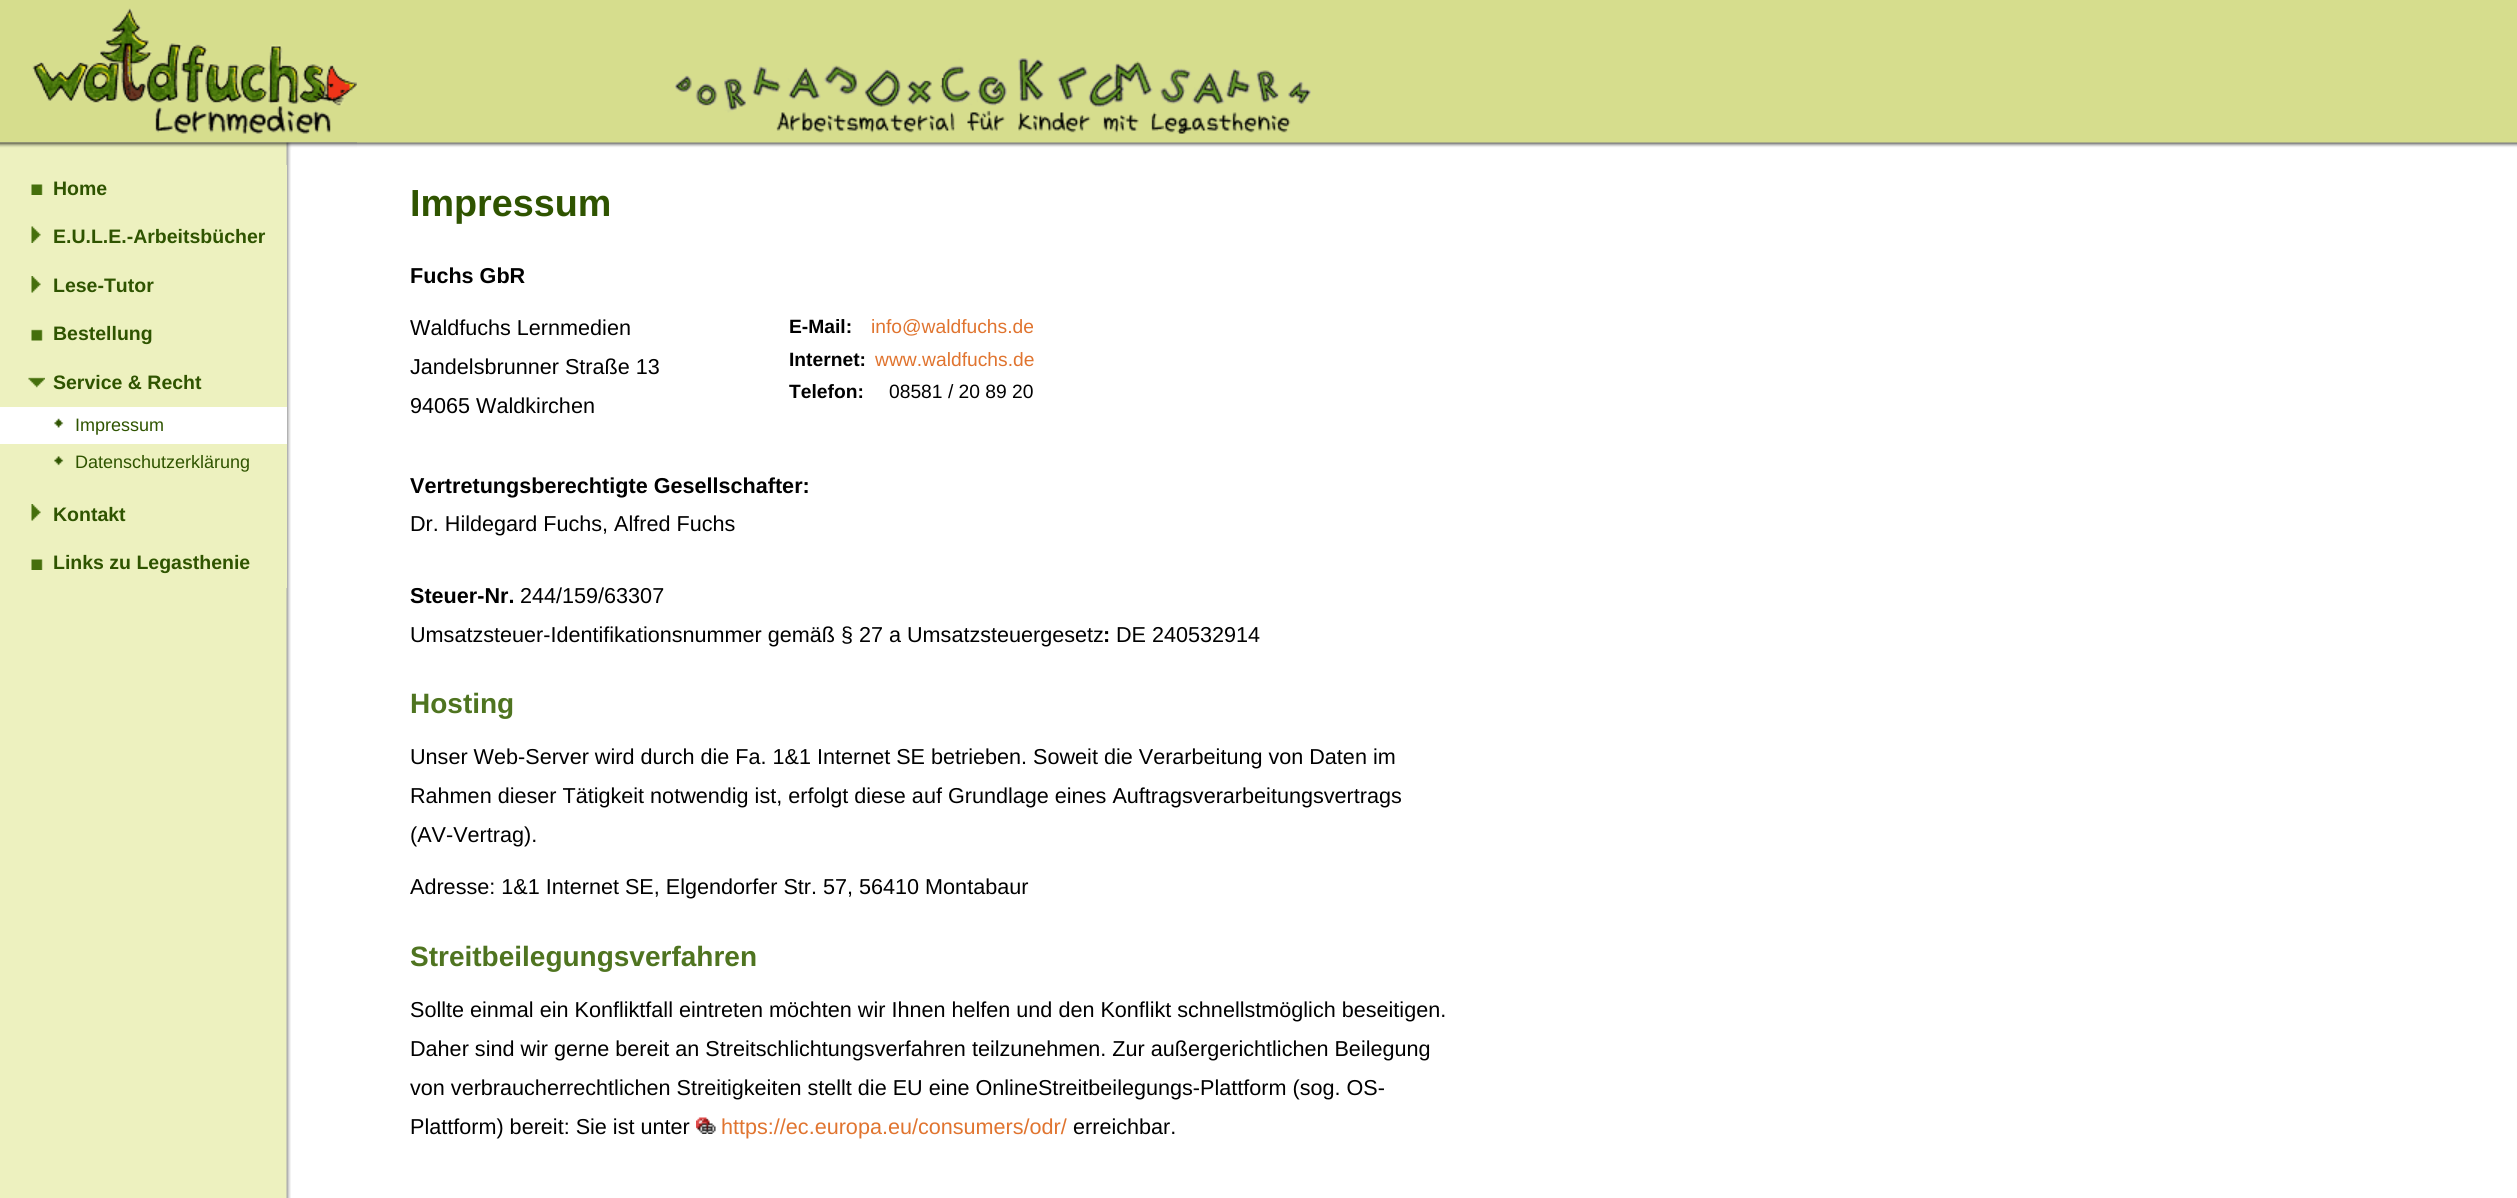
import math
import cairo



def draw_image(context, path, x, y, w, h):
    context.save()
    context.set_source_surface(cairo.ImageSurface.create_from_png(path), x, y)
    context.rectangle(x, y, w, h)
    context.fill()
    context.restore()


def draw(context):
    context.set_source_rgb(1, 1, 1)
    context.paint()
    draw_image(context, "images/1.png", 0, 150, 291, 1048)
    draw_image(context, "images/2.png", 0, 0, 2517, 150)
    draw_image(context, "images/3.png", 0, 8, 357, 142)
    draw_image(context, "images/4.png", 675, 58, 636, 76)
    context.set_source_rgb(237 / 255, 241 / 255, 191 / 255)
    context.rectangle(286, 165, 1, 423)
    context.fill()
    draw_image(context, "images/5.png", 31, 184, 12, 11)
    draw_image(context, "images/6.png", 31, 226, 10, 17)
    draw_image(context, "images/7.png", 31, 276, 10, 17)
    draw_image(context, "images/8.png", 31, 329, 12, 12)
    draw_image(context, "images/9.png", 28, 377, 17, 11)
    context.set_source_rgb(1, 1, 1)
    context.rectangle(0, 407, 287, 37)
    context.fill()
    draw_image(context, "images/10.png", 54, 418, 10, 10)
    draw_image(context, "images/11.png", 54, 456, 10, 10)
    draw_image(context, "images/7.png", 31, 504, 10, 17)
    draw_image(context, "images/5.png", 31, 559, 12, 11)
    draw_image(context, "images/12.png", 696, 1117, 20, 17)
    context.select_font_face("Liberation Sans", cairo.FontSlant.NORMAL, cairo.FontWeight.BOLD)
    context.set_font_size(19.5)
    context.set_source_rgb(47 / 255, 84 / 255, 0)
    context.move_to(53, 195)
    context.show_text("Home")
    context.move_to(53, 243)
    context.show_text("E.U.L.E.-Arbeitsbücher")
    context.move_to(53, 292)
    context.show_text("Lese-Tutor")
    context.move_to(53, 340)
    context.show_text("Bestellung")
    context.move_to(53, 389)
    context.show_text("Service & Recht")
    context.select_font_face("Liberation Sans")
    context.set_font_size(18)
    context.move_to(75, 431)
    context.show_text("Impressum")
    context.move_to(75, 468)
    context.show_text("Datenschutzerklärung")
    context.select_font_face("Liberation Sans", cairo.FontSlant.NORMAL, cairo.FontWeight.BOLD)
    context.set_font_size(19.5)
    context.move_to(53, 521)
    context.show_text("Kontakt")
    context.move_to(53, 569)
    context.show_text("Links zu Legasthenie")
    context.set_font_size(37.75)
    context.move_to(410, 216)
    context.show_text("Impressum")
    context.set_font_size(21.6)
    context.set_source_rgb(0, 0, 0)
    context.move_to(410, 283)
    context.show_text("Fuchs GbR")
    context.select_font_face("Liberation Sans")
    context.move_to(410, 335)
    context.show_text("Waldfuchs Lernmedien")
    context.move_to(410, 374)
    context.show_text("Jandelsbrunner Straße 13")
    context.move_to(410, 413)
    context.show_text("94065 Waldkirchen")
    context.select_font_face("Liberation Sans", cairo.FontSlant.NORMAL, cairo.FontWeight.BOLD)
    context.set_font_size(19.25)
    context.move_to(789, 333)
    context.show_text("E-Mail:")
    context.select_font_face("Liberation Sans")
    context.set_source_rgb(224 / 255, 116 / 255, 47 / 255)
    context.move_to(871, 333)
    context.show_text("info@waldfuchs.de")
    context.select_font_face("Liberation Sans", cairo.FontSlant.NORMAL, cairo.FontWeight.BOLD)
    context.set_source_rgb(0, 0, 0)
    context.move_to(789, 366)
    context.show_text("Internet:")
    context.select_font_face("Liberation Sans")
    context.set_source_rgb(224 / 255, 116 / 255, 47 / 255)
    context.move_to(875, 366)
    context.show_text("www.waldfuchs.de")
    context.select_font_face("Liberation Sans", cairo.FontSlant.NORMAL, cairo.FontWeight.BOLD)
    context.set_source_rgb(0, 0, 0)
    context.move_to(789, 398)
    context.show_text("Telefon:")
    context.select_font_face("Liberation Sans")
    context.move_to(889, 398)
    context.show_text("08581 / 20 89 20")
    context.select_font_face("Liberation Sans", cairo.FontSlant.NORMAL, cairo.FontWeight.BOLD)
    context.set_font_size(21.6)
    context.move_to(410, 493)
    context.show_text("Vertretungsberechtigte Gesellschafter:")
    context.select_font_face("Liberation Sans")
    context.move_to(410, 531)
    context.show_text("Dr. Hildegard Fuchs, Alfred Fuchs")
    context.select_font_face("Liberation Sans", cairo.FontSlant.NORMAL, cairo.FontWeight.BOLD)
    context.move_to(410, 603)
    context.show_text("Steuer-Nr.")
    context.select_font_face("Liberation Sans")
    context.move_to(520, 603)
    context.show_text("244/159/63307")
    context.move_to(410, 642)
    context.show_text("Umsatzsteuer-Identifikationsnummer gemäß § 27 a Umsatzsteuergesetz")
    context.select_font_face("Liberation Sans", cairo.FontSlant.NORMAL, cairo.FontWeight.BOLD)
    context.move_to(1103, 642)
    context.show_text(":")
    context.select_font_face("Liberation Sans")
    context.move_to(1116, 642)
    context.show_text("DE 240532914")
    context.select_font_face("Liberation Sans", cairo.FontSlant.NORMAL, cairo.FontWeight.BOLD)
    context.set_font_size(28)
    context.set_source_rgb(79 / 255, 116 / 255, 32 / 255)
    context.move_to(410, 713)
    context.show_text("Hosting")
    context.select_font_face("Liberation Sans")
    context.set_font_size(21.6)
    context.set_source_rgb(0, 0, 0)
    context.move_to(410, 764)
    context.show_text("Unser Web-Server wird durch die Fa. 1&1 Internet SE betrieben. Soweit die Verarbeitung von Daten im")
    context.move_to(410, 803)
    context.show_text("Rahmen dieser Tätigkeit notwendig ist, erfolgt diese auf Grundlage eines Auftragsverarbeitungsvertrags")
    context.move_to(410, 842)
    context.show_text("(AV-Vertrag).")
    context.move_to(410, 894)
    context.show_text("Adresse: 1&1 Internet SE, Elgendorfer Str. 57, 56410 Montabaur")
    context.select_font_face("Liberation Sans", cairo.FontSlant.NORMAL, cairo.FontWeight.BOLD)
    context.set_font_size(28)
    context.set_source_rgb(79 / 255, 116 / 255, 32 / 255)
    context.move_to(410, 966)
    context.show_text("Streitbeilegungsverfahren")
    context.select_font_face("Liberation Sans")
    context.set_font_size(21.6)
    context.set_source_rgb(0, 0, 0)
    context.move_to(410, 1017)
    context.show_text("Sollte einmal ein Konfliktfall eintreten möchten wir Ihnen helfen und den Konflikt schnellstmöglich beseitigen.")
    context.move_to(410, 1056)
    context.show_text("Daher sind wir gerne bereit an Streitschlichtungsverfahren teilzunehmen. Zur außergerichtlichen Beilegung")
    context.move_to(410, 1095)
    context.show_text("von verbraucherrechtlichen Streitigkeiten stellt die EU eine OnlineStreitbeilegungs-Plattform (sog. OS-")
    context.move_to(410, 1134)
    context.show_text("Plattform) bereit: Sie ist unter")
    context.set_source_rgb(224 / 255, 116 / 255, 47 / 255)
    context.move_to(721, 1134)
    context.show_text("https://ec.europa.eu/consumers/odr/")
    context.set_source_rgb(0, 0, 0)
    context.move_to(1073, 1134)
    context.show_text("erreichbar.")


surface = cairo.ImageSurface(cairo.Format.RGB24, 2517, 1198)
context = cairo.Context(surface)
options = cairo.FontOptions()
options.set_hint_metrics(cairo.HintMetrics.OFF)
options.set_hint_style(cairo.HintStyle.NONE)
context.set_font_options(options)
context.set_miter_limit(4)
draw(context)
surface.write_to_png("out.png")
